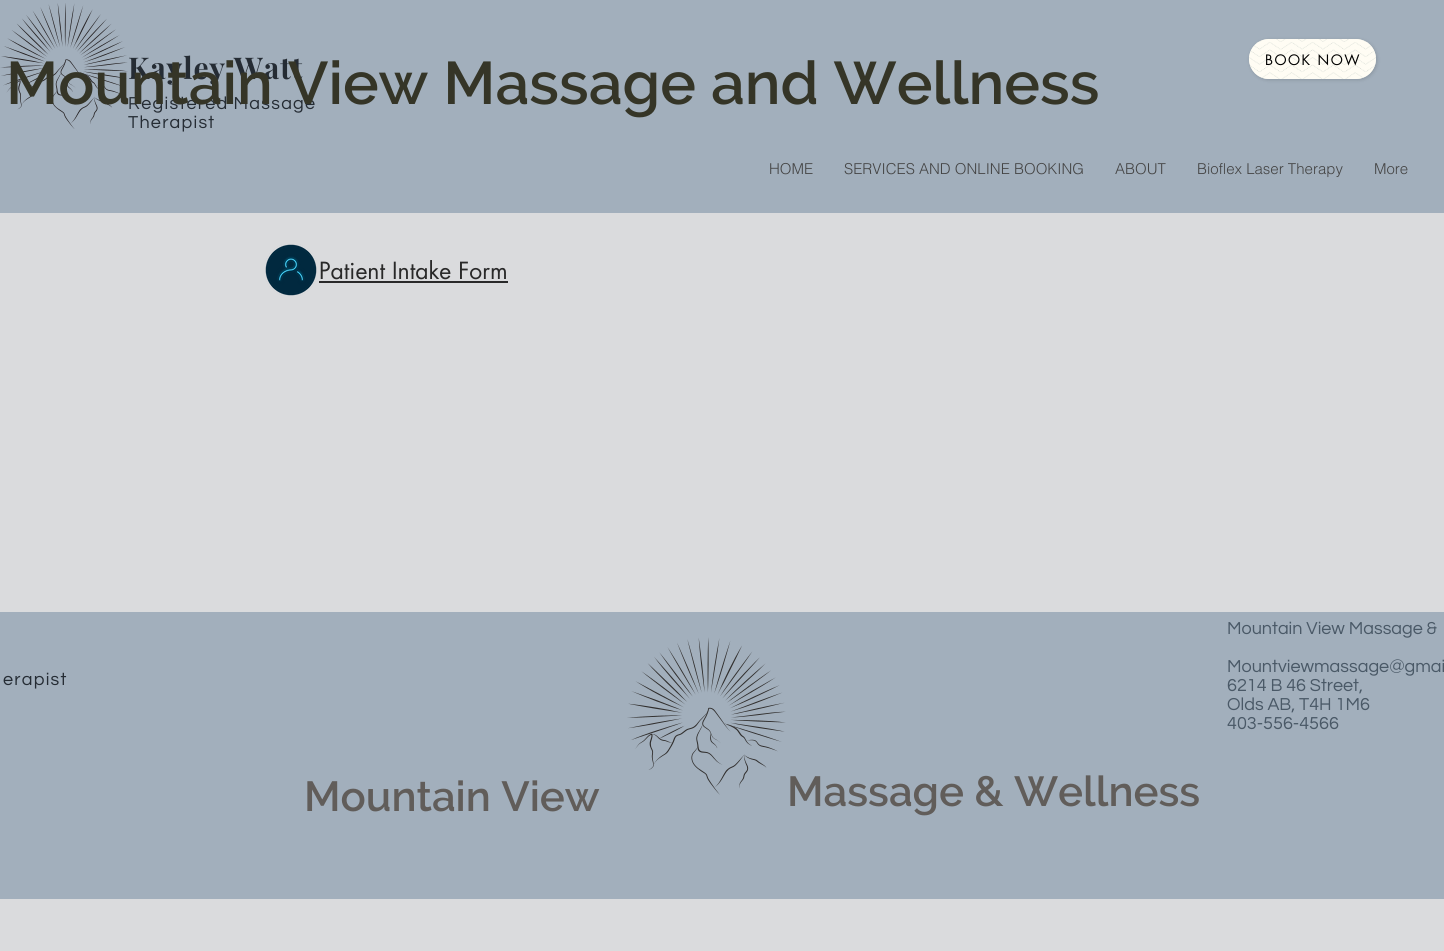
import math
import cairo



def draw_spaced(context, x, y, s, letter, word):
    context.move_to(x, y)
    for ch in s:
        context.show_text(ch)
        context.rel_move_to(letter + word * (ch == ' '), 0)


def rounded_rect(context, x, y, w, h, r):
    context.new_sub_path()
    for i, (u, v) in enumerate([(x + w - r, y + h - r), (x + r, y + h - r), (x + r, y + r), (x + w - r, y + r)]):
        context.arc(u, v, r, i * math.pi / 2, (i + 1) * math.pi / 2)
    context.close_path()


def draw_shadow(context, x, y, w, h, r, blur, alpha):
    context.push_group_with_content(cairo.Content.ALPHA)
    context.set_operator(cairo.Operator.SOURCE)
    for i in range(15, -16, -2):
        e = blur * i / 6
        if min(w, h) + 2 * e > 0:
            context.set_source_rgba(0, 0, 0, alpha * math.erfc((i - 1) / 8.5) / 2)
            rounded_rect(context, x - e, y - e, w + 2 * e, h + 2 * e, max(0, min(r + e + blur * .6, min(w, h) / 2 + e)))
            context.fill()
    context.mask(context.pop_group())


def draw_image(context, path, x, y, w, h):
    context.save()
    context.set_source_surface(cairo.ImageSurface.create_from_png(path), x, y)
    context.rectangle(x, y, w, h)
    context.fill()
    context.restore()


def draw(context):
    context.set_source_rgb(218 / 255, 219 / 255, 221 / 255)
    context.paint()
    context.set_source_rgb(162 / 255, 175 / 255, 188 / 255)
    context.rectangle(0, 0, 1444, 213)
    context.fill()
    context.set_source_rgb(0, 0, 0)
    draw_shadow(context, 1250, 40, 127, 40, 20, 2, 0.15)
    context.set_source_rgb(1, 253 / 255, 244 / 255)
    rounded_rect(context, 1249, 39, 127, 40, 20)
    context.fill()
    draw_image(context, "images/1.png", 1249, 39, 127, 40)
    draw_image(context, "images/2.png", 0, 3, 128, 126)
    draw_image(context, "images/3.png", 265, 244, 52, 52)
    context.set_source_rgb(41 / 255, 41 / 255, 41 / 255)
    context.rectangle(319, 281, 189, 2)
    context.fill()
    context.set_source_rgb(162 / 255, 175 / 255, 188 / 255)
    context.rectangle(0, 612, 1444, 287)
    context.fill()
    draw_image(context, "images/4.png", 627, 637, 159, 158)
    context.select_font_face("futura")
    context.set_font_size(14)
    context.set_source_rgb(0, 0, 0)
    draw_spaced(context, 1265, 65, "BOOK NOW", 1.5, 0)
    context.select_font_face("helvetica Light")
    context.set_font_size(15)
    context.set_source_rgb(68 / 255, 68 / 255, 68 / 255)
    context.move_to(769, 174)
    context.show_text("HOME")
    context.move_to(844, 174)
    context.show_text("SERVICES AND ONLINE BOOKING")
    context.move_to(1115, 174)
    context.show_text("ABOUT")
    context.move_to(1197, 174)
    context.show_text("Bioflex Laser Therapy")
    context.move_to(1374, 174)
    context.show_text("More")
    context.select_font_face("Playfair Display", cairo.FontSlant.NORMAL, cairo.FontWeight.BOLD)
    context.set_font_size(30)
    context.set_source_rgb(37 / 255, 44 / 255, 52 / 255)
    draw_spaced(context, 128, 79, "Kayley Watt", 0.9, 0)
    context.select_font_face("Questrial")
    context.set_font_size(18)
    draw_spaced(context, 128, 109, "Registered Massage", 1.25, 0)
    context.select_font_face("Raleway SemiBold")
    context.set_font_size(60)
    context.set_source_rgb(53 / 255, 53 / 255, 39 / 255)
    context.move_to(6, 104)
    context.show_text("Mountain View Massage and Wellness")
    context.select_font_face("Questrial")
    context.set_font_size(18)
    context.set_source_rgb(37 / 255, 44 / 255, 52 / 255)
    draw_spaced(context, 128, 128, "Therapist", 1.25, 0)
    context.select_font_face("futura")
    context.set_font_size(23)
    context.set_source_rgb(41 / 255, 41 / 255, 41 / 255)
    context.move_to(319, 279)
    context.show_text("Patient Intake Form")
    context.select_font_face("Questrial")
    context.set_font_size(18)
    context.set_source_rgb(37 / 255, 44 / 255, 52 / 255)
    draw_spaced(context, 3, 685, "erapist", 1.25, 0)
    context.set_source_rgb(74 / 255, 89 / 255, 103 / 255)
    context.move_to(1227, 634)
    context.show_text("Mountain View Massage &")
    context.move_to(1227, 672)
    context.show_text("Mountviewmassage@gmai")
    context.move_to(1227, 691)
    context.show_text("6214 B 46 Street,")
    context.move_to(1227, 710)
    context.show_text("Olds AB, T4H 1M6")
    context.move_to(1227, 729)
    context.show_text("403-556-4566")
    context.select_font_face("Raleway SemiBold")
    context.set_font_size(42)
    context.set_source_rgb(97 / 255, 93 / 255, 90 / 255)
    context.move_to(304, 811)
    context.show_text("Mountain View")
    context.move_to(787, 806)
    context.show_text("Massage & Wellness")


surface = cairo.ImageSurface(cairo.Format.RGB24, 1444, 951)
context = cairo.Context(surface)
options = cairo.FontOptions()
options.set_hint_metrics(cairo.HintMetrics.OFF)
options.set_hint_style(cairo.HintStyle.NONE)
context.set_font_options(options)
context.set_miter_limit(4)
draw(context)
surface.write_to_png("out.png")
